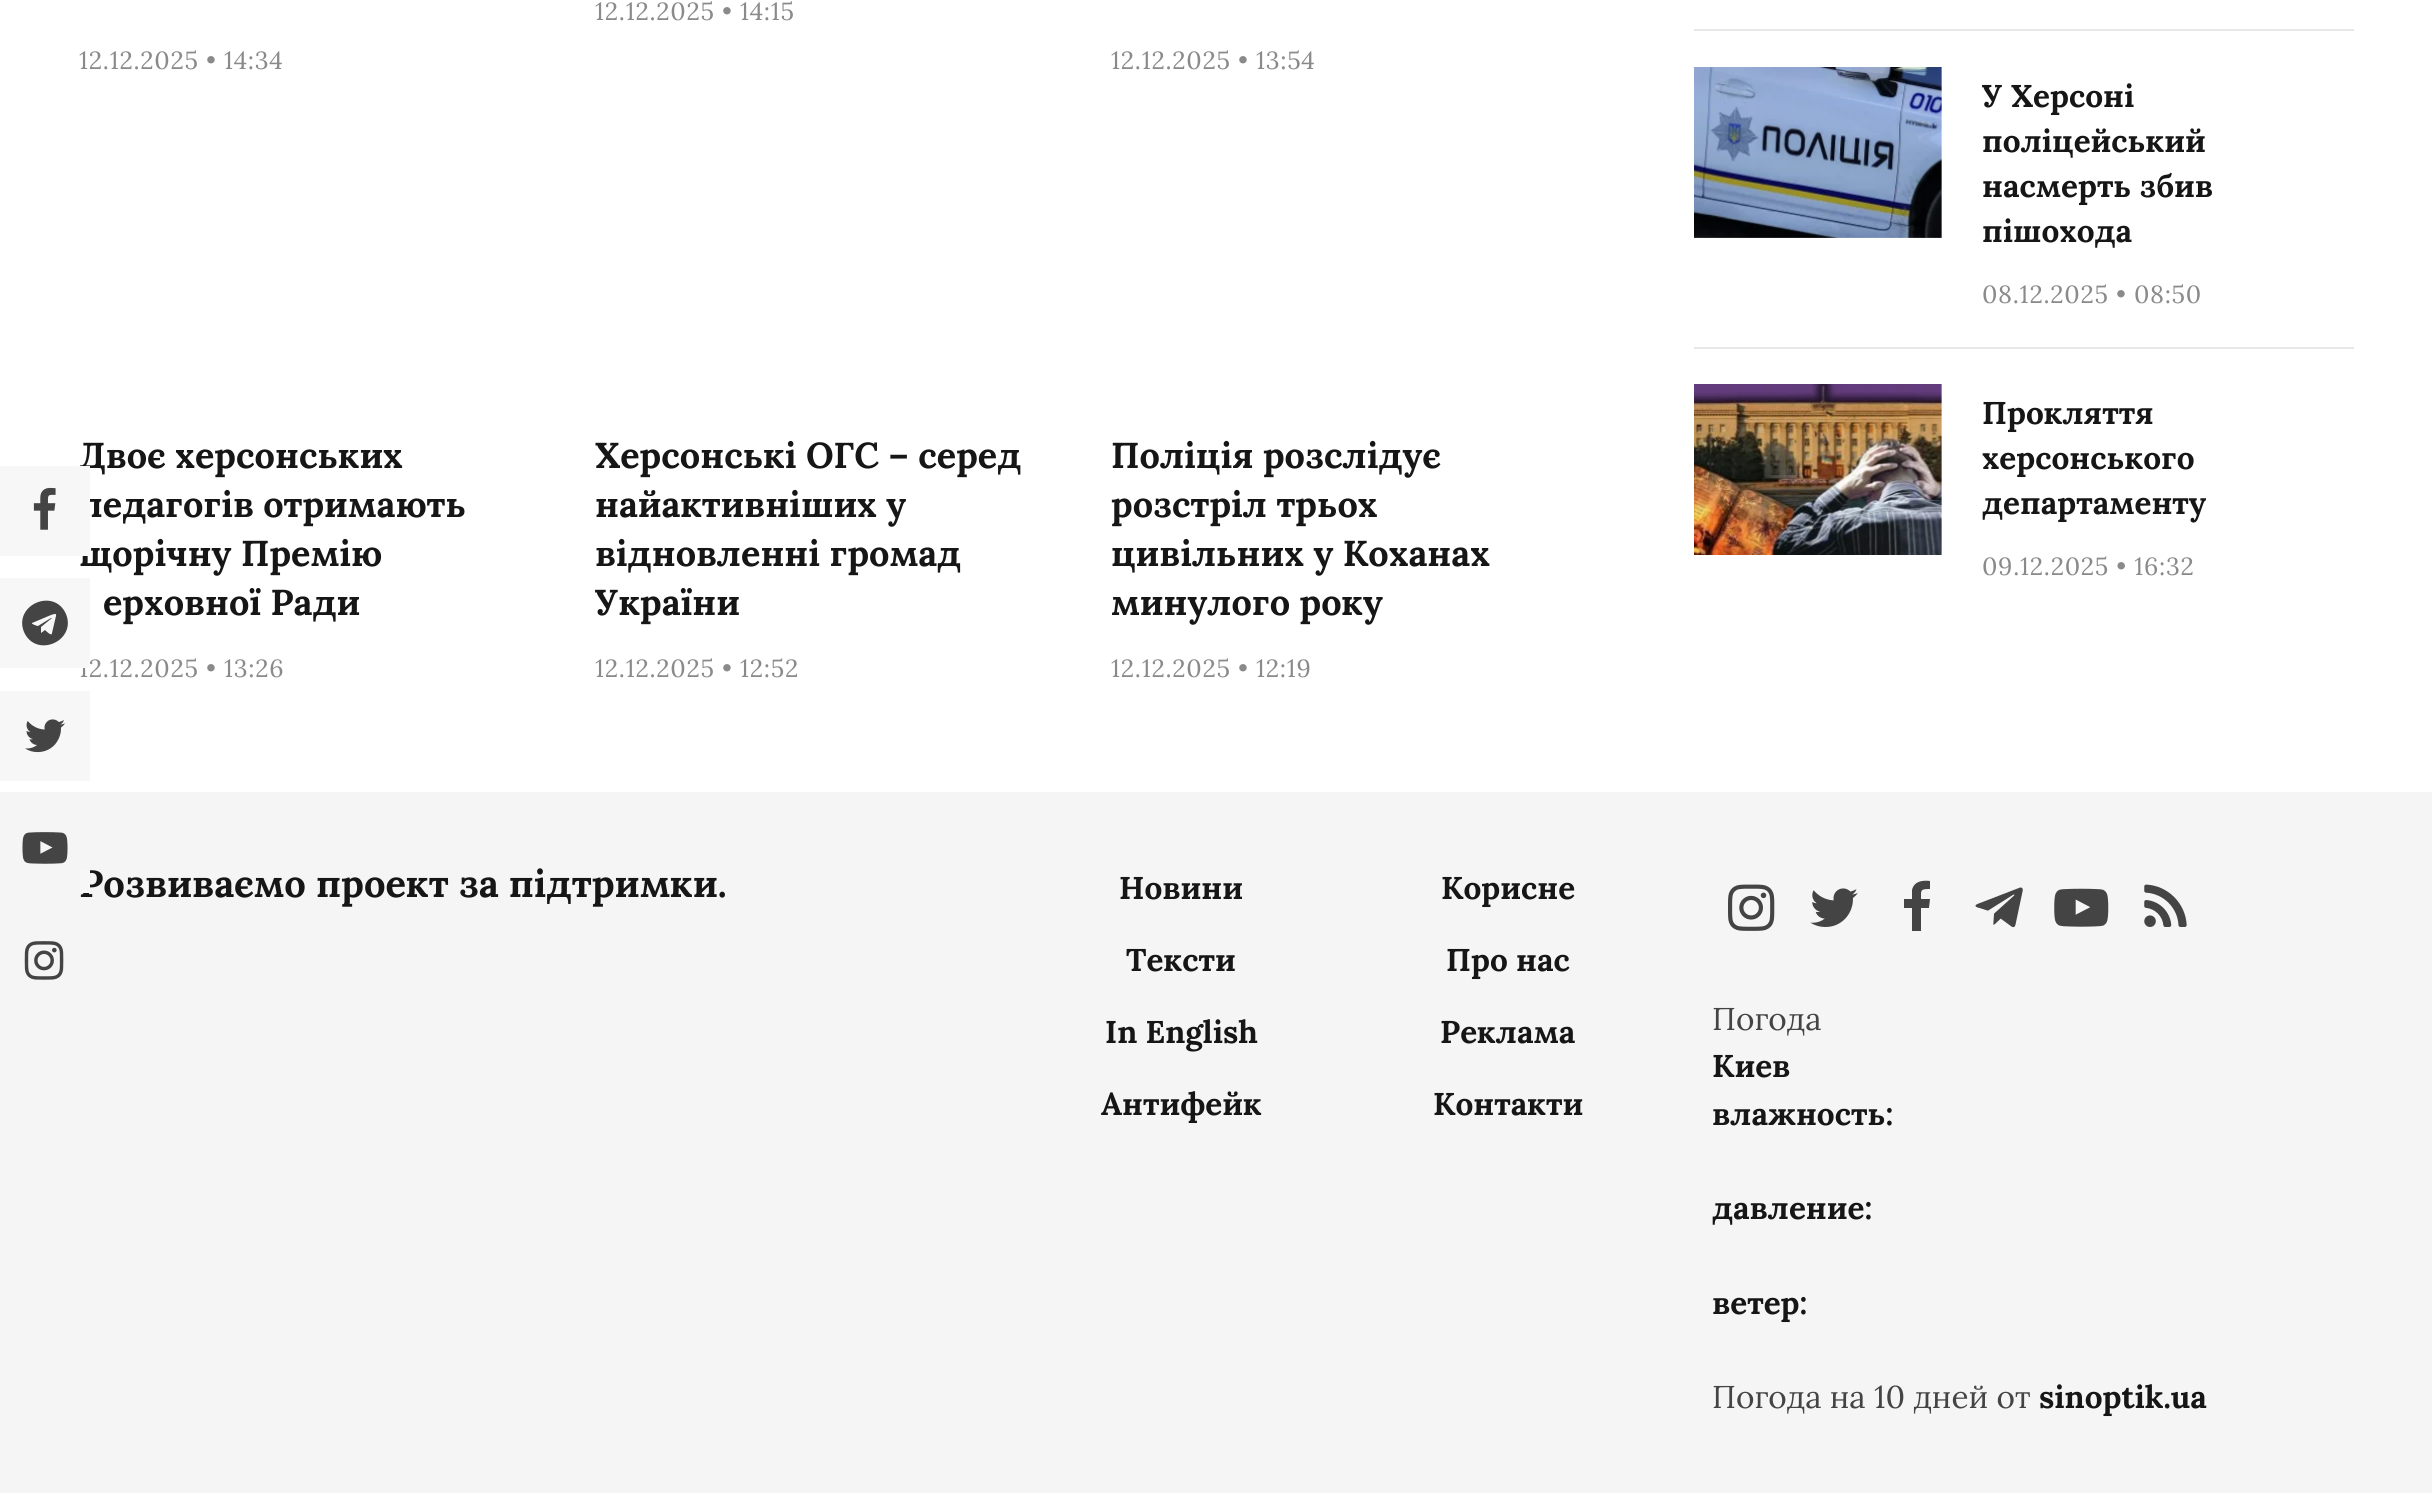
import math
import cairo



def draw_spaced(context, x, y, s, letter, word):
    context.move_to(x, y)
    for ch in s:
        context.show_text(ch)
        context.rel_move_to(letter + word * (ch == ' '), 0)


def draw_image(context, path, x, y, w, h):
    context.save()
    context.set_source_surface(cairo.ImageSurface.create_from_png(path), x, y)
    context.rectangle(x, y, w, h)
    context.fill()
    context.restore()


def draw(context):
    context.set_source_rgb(1, 1, 1)
    context.paint()
    context.set_source_rgb(247 / 255, 247 / 255, 247 / 255)
    context.rectangle(0, 691, 90, 90)
    context.fill()
    draw_image(context, "images/2.png", 25, 719, 40, 34)
    context.set_source_rgb(245 / 255, 245 / 255, 245 / 255)
    context.rectangle(0, 792, 2432, 701)
    context.fill()
    draw_image(context, "images/3.png", 22, 832, 46, 32)
    draw_image(context, "images/4.png", 24, 941, 40, 39)
    context.set_source_rgb(232 / 255, 232 / 255, 232 / 255)
    context.rectangle(1694, 29, 660, 2)
    context.fill()
    draw_image(context, "images/5.png", 1694, 67, 248, 171)
    context.rectangle(1694, 347, 660, 2)
    context.fill()
    draw_image(context, "images/6.png", 1694, 384, 248, 171)
    draw_image(context, "images/7.png", 1728, 884, 47, 47)
    draw_image(context, "images/8.png", 1810, 888, 48, 39)
    context.set_source_rgb(68 / 255, 68 / 255, 68 / 255)
    context.new_path()
    context.move_to(1930, 881)
    context.line_to(1930, 889)
    context.curve_to(1920, 889, 1921, 890, 1921, 899)
    context.line_to(1930, 899)
    context.line_to(1929, 908)
    context.line_to(1921, 908)
    context.line_to(1921, 931)
    context.line_to(1912, 931)
    context.line_to(1912, 908)
    context.line_to(1904, 908)
    context.line_to(1904, 899)
    context.line_to(1912, 899)
    context.line_to(1912, 890)
    context.curve_to(1914, 881, 1923, 880, 1930, 881)
    context.close_path()
    context.fill()
    draw_image(context, "images/9.png", 1975, 887, 48, 41)
    draw_image(context, "images/10.png", 2054, 888, 55, 39)
    draw_image(context, "images/11.png", 2144, 884, 43, 43)
    context.select_font_face("Lora")
    context.set_font_size(24.75)
    context.set_source_rgb(138 / 255, 138 / 255, 138 / 255)
    draw_spaced(context, 595, 20, "12.12.2025 • 14:15", 0.75, 0)
    draw_spaced(context, 79, 69, "12.12.2025 • 14:34", 0.75, 0)
    draw_spaced(context, 1111, 69, "12.12.2025 • 13:54", 0.75, 0)
    context.select_font_face("Lora", cairo.FontSlant.NORMAL, cairo.FontWeight.BOLD)
    context.set_font_size(36)
    context.set_source_rgb(22 / 255, 22 / 255, 22 / 255)
    context.move_to(79, 468)
    context.show_text("Двоє херсонських")
    context.move_to(79, 517)
    context.show_text("педагогів отримають")
    context.move_to(79, 566)
    context.show_text("щорічну Премію")
    context.set_source_rgb(247 / 255, 247 / 255, 247 / 255)
    context.rectangle(0, 466, 90, 90)
    context.fill()
    draw_image(context, "images/1.png", 33, 487, 23, 43)
    context.set_source_rgb(22 / 255, 22 / 255, 22 / 255)
    context.move_to(103, 615)
    context.show_text("ерховної Ради")
    context.select_font_face("Lora")
    context.set_font_size(24.75)
    context.set_source_rgb(138 / 255, 138 / 255, 138 / 255)
    draw_spaced(context, 79, 677, "12.12.2025 • 13:26", 0.75, 0)
    context.set_source_rgb(247 / 255, 247 / 255, 247 / 255)
    context.rectangle(0, 578, 90, 90)
    context.fill()
    context.set_source_rgb(68 / 255, 68 / 255, 68 / 255)
    context.new_path()
    context.move_to(52, 633)
    context.line_to(56, 616)
    context.curve_to(57, 612, 52, 615, 51, 615)
    context.line_to(32, 623)
    context.curve_to(31, 624, 37, 626, 38, 626)
    context.line_to(51, 618)
    context.curve_to(51, 618, 52, 618, 52, 618)
    context.line_to(41, 627)
    context.line_to(41, 633)
    context.line_to(45, 630)
    context.curve_to(46, 631, 52, 637, 52, 633)
    context.close_path()
    context.move_to(66, 614)
    context.curve_to(77, 641, 36, 659, 24, 632)
    context.curve_to(13, 605, 54, 587, 66, 614)
    context.close_path()
    context.fill()
    context.select_font_face("Lora", cairo.FontSlant.NORMAL, cairo.FontWeight.BOLD)
    context.set_font_size(36)
    context.set_source_rgb(22 / 255, 22 / 255, 22 / 255)
    context.move_to(595, 468)
    context.show_text("Херсонські ОГС – серед")
    context.move_to(595, 517)
    context.show_text("найактивніших у")
    context.move_to(595, 566)
    context.show_text("відновленні громад")
    context.move_to(595, 615)
    context.show_text("України")
    context.select_font_face("Lora")
    context.set_font_size(24.75)
    context.set_source_rgb(138 / 255, 138 / 255, 138 / 255)
    draw_spaced(context, 595, 677, "12.12.2025 • 12:52", 0.75, 0)
    context.select_font_face("Lora", cairo.FontSlant.NORMAL, cairo.FontWeight.BOLD)
    context.set_font_size(36)
    context.set_source_rgb(22 / 255, 22 / 255, 22 / 255)
    context.move_to(1111, 468)
    context.show_text("Поліція розслідує")
    context.move_to(1111, 517)
    context.show_text("розстріл трьох")
    context.move_to(1111, 566)
    context.show_text("цивільних у Коханах")
    context.move_to(1111, 615)
    context.show_text("минулого року")
    context.select_font_face("Lora")
    context.set_font_size(24.75)
    context.set_source_rgb(138 / 255, 138 / 255, 138 / 255)
    draw_spaced(context, 1111, 677, "12.12.2025 • 12:19", 0.75, 0)
    context.select_font_face("Lora", cairo.FontSlant.NORMAL, cairo.FontWeight.BOLD)
    context.set_font_size(31.5)
    context.set_source_rgb(22 / 255, 22 / 255, 22 / 255)
    context.move_to(1982, 107)
    context.show_text("У Херсоні")
    context.move_to(1982, 152)
    context.show_text("поліцейський")
    context.move_to(1982, 197)
    context.show_text("насмерть збив")
    context.move_to(1982, 242)
    context.show_text("пішохода")
    context.select_font_face("Lora")
    context.set_font_size(24.75)
    context.set_source_rgb(138 / 255, 138 / 255, 138 / 255)
    draw_spaced(context, 1982, 303, "08.12.2025 • 08:50", 0.75, 0)
    context.select_font_face("Lora", cairo.FontSlant.NORMAL, cairo.FontWeight.BOLD)
    context.set_font_size(31.5)
    context.set_source_rgb(22 / 255, 22 / 255, 22 / 255)
    context.move_to(1982, 424)
    context.show_text("Прокляття")
    context.move_to(1982, 469)
    context.show_text("херсонського")
    context.move_to(1982, 514)
    context.show_text("департаменту")
    context.select_font_face("Lora")
    context.set_font_size(24.75)
    context.set_source_rgb(138 / 255, 138 / 255, 138 / 255)
    draw_spaced(context, 1982, 575, "09.12.2025 • 16:32", 0.75, 0)
    context.select_font_face("Lora", cairo.FontSlant.NORMAL, cairo.FontWeight.BOLD)
    context.set_font_size(38.1)
    context.set_source_rgb(22 / 255, 22 / 255, 22 / 255)
    context.move_to(79, 897)
    context.show_text("Розвиваємо проект за підтримки.")
    context.set_source_rgb(247 / 255, 247 / 255, 247 / 255)
    context.rectangle(80, 870, 10, 23)
    context.fill()
    context.set_font_size(31.5)
    context.set_source_rgb(22 / 255, 22 / 255, 22 / 255)
    context.move_to(1119, 899)
    context.show_text("Новини")
    context.move_to(1126, 971)
    context.show_text("Тексти")
    context.move_to(1105, 1043)
    context.show_text("In English")
    context.move_to(1101, 1115)
    context.show_text("Антифейк")
    context.move_to(1441, 899)
    context.show_text("Корисне")
    context.move_to(1446, 971)
    context.show_text("Про нас")
    context.move_to(1440, 1043)
    context.show_text("Реклама")
    context.move_to(1433, 1115)
    context.show_text("Контакти")
    context.select_font_face("Lora")
    context.set_source_rgb(68 / 255, 68 / 255, 68 / 255)
    context.move_to(1712, 1030)
    context.show_text("Погода")
    context.select_font_face("Lora", cairo.FontSlant.NORMAL, cairo.FontWeight.BOLD)
    context.set_source_rgb(22 / 255, 22 / 255, 22 / 255)
    context.move_to(1712, 1077)
    context.show_text("Киев")
    context.move_to(1712, 1125)
    context.show_text("влажность:")
    context.move_to(1712, 1219)
    context.show_text("давление:")
    context.move_to(1712, 1314)
    context.show_text("ветер:")
    context.select_font_face("Lora")
    context.set_source_rgb(68 / 255, 68 / 255, 68 / 255)
    context.move_to(1712, 1408)
    context.show_text("Погода на 10 дней от")
    context.select_font_face("Lora", cairo.FontSlant.NORMAL, cairo.FontWeight.BOLD)
    context.set_source_rgb(22 / 255, 22 / 255, 22 / 255)
    context.move_to(2039, 1408)
    context.show_text("sinoptik.ua")


surface = cairo.ImageSurface(cairo.Format.RGB24, 2432, 1493)
context = cairo.Context(surface)
options = cairo.FontOptions()
options.set_hint_metrics(cairo.HintMetrics.OFF)
options.set_hint_style(cairo.HintStyle.NONE)
context.set_font_options(options)
context.set_miter_limit(4)
draw(context)
surface.write_to_png("out.png")
